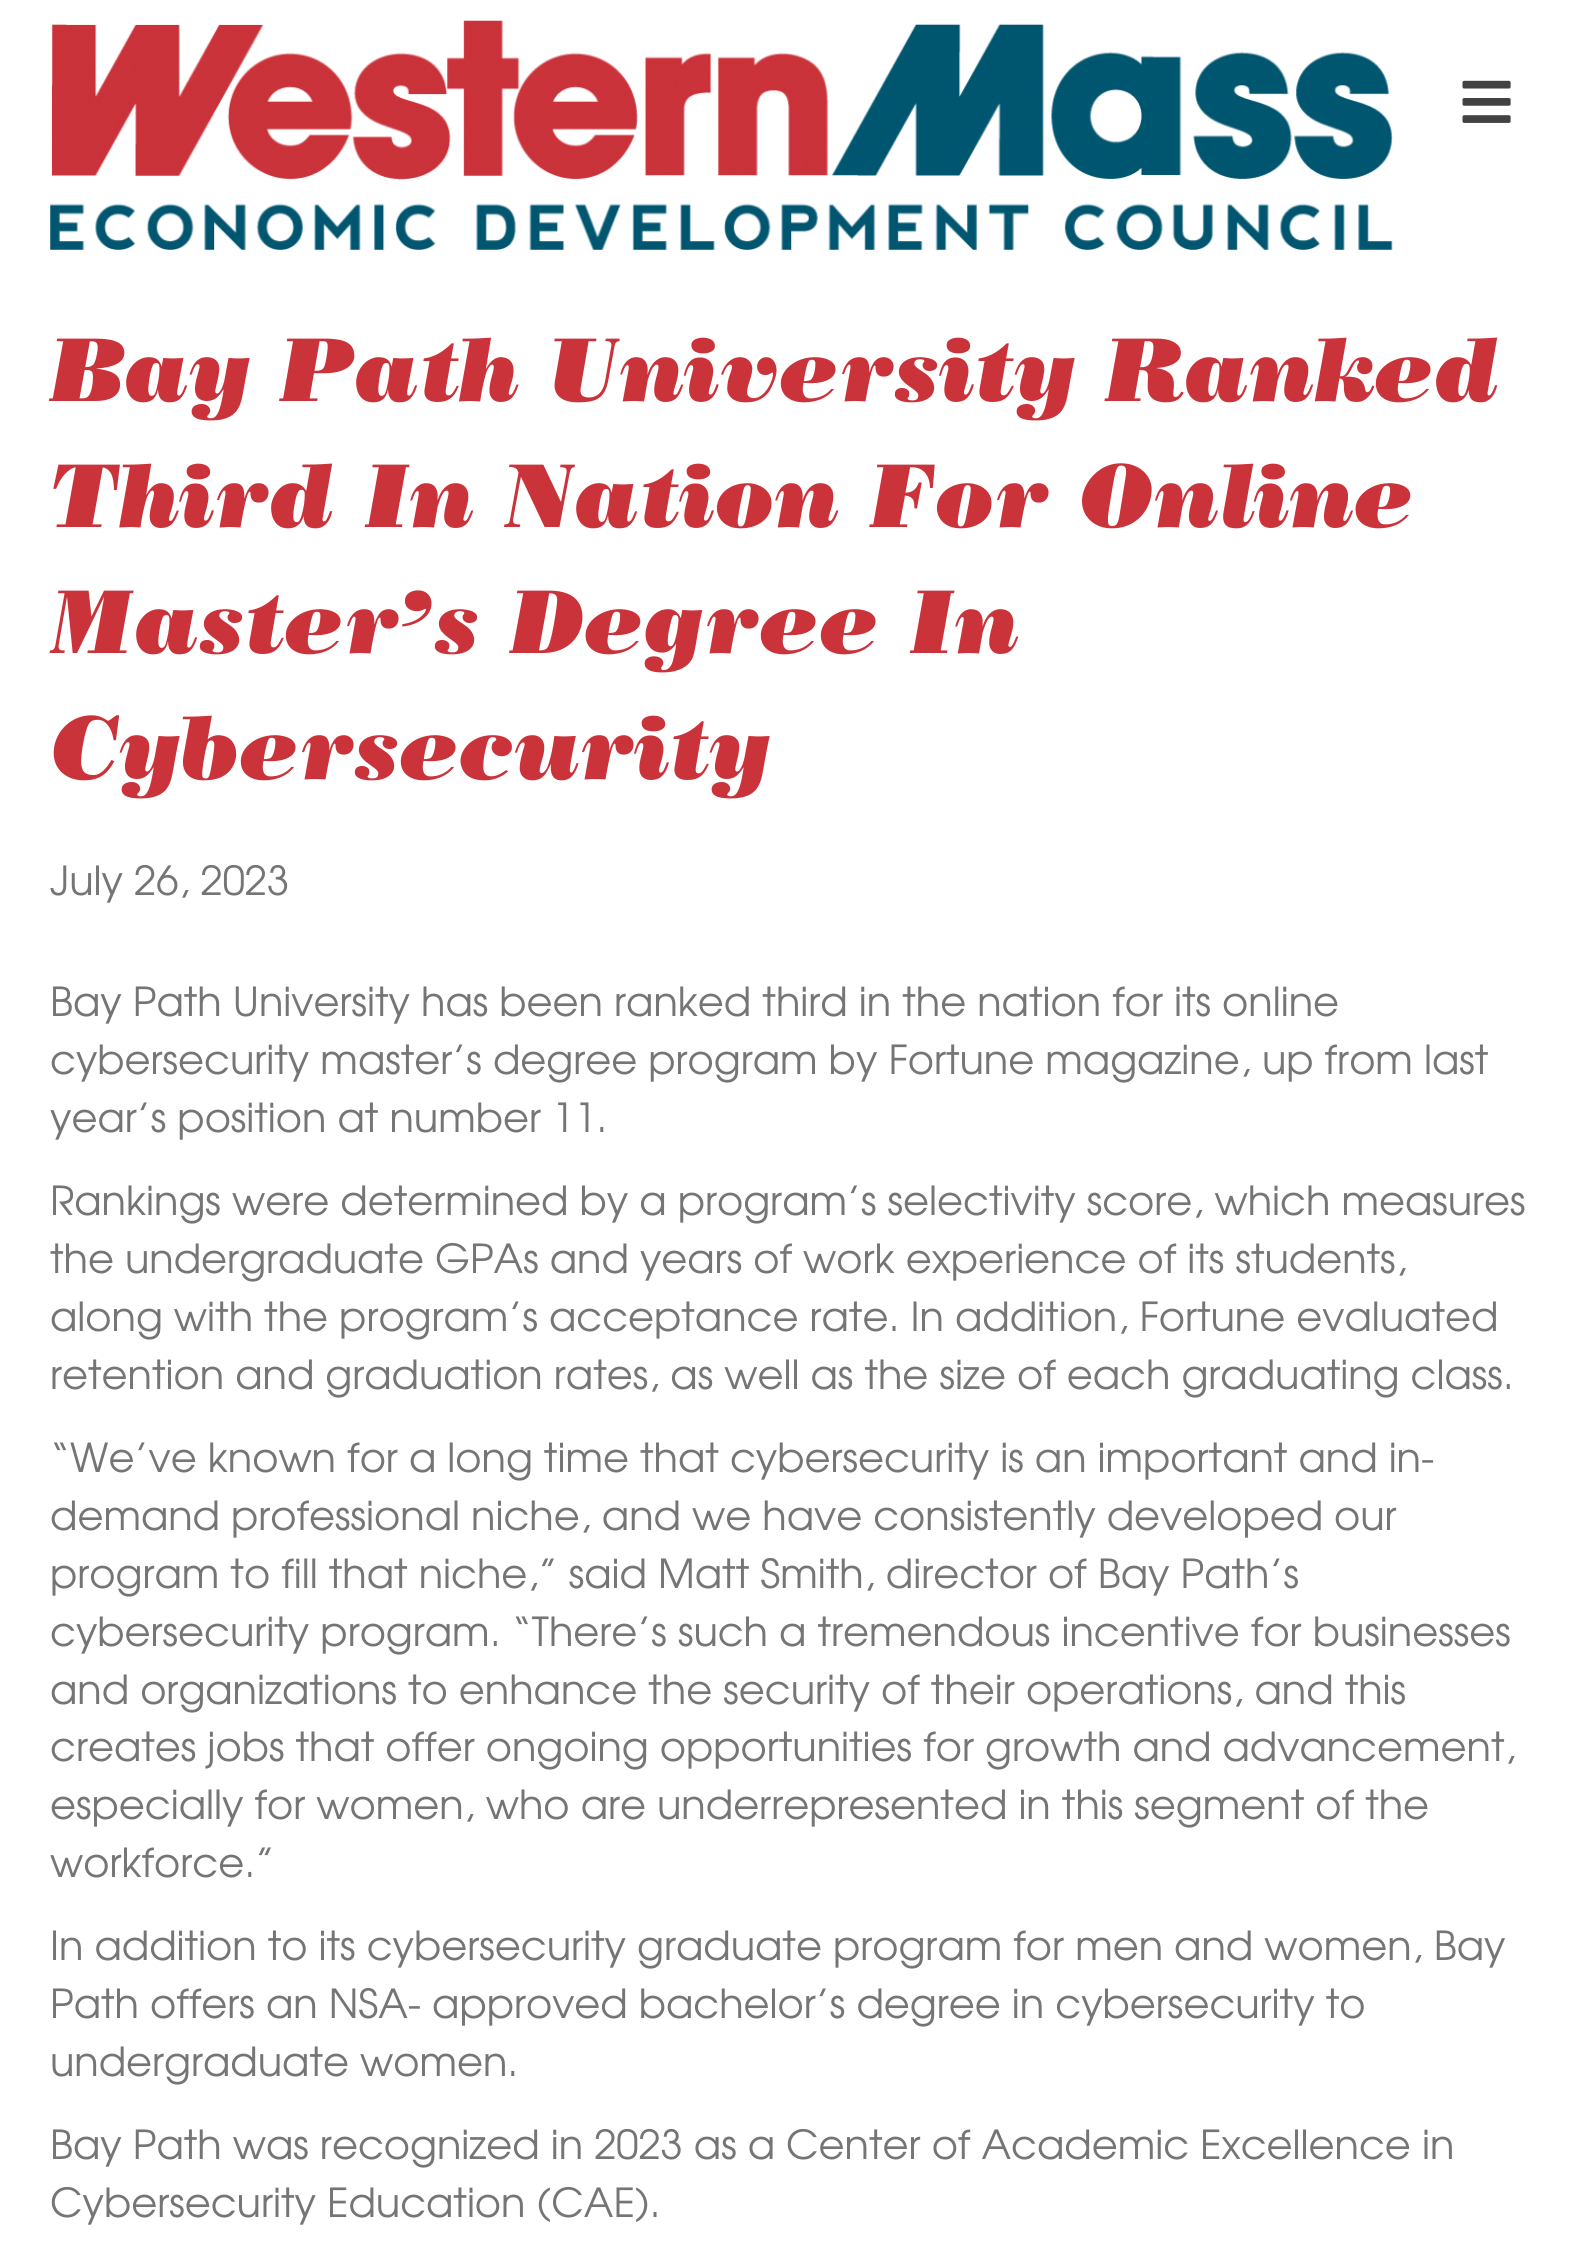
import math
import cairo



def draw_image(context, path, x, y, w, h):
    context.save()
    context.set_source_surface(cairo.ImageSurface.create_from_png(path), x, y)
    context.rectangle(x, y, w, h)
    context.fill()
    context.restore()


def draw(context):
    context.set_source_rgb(1, 1, 1)
    context.paint()
    draw_image(context, "images/1.png", 50, 20, 1343, 230)
    draw_image(context, "images/2.png", 1462, 80, 49, 43)
    context.select_font_face("Bodoni Black", cairo.FontSlant.ITALIC)
    context.set_font_size(90)
    context.set_source_rgb(203 / 255, 51 / 255, 59 / 255)
    context.move_to(50, 401)
    context.show_text("Bay Path University Ranked")
    context.move_to(50, 527)
    context.show_text("Third In Nation For Online")
    context.move_to(50, 653)
    context.show_text("Master’s Degree In")
    context.move_to(50, 779)
    context.show_text("Cybersecurity")
    context.select_font_face("TeX Gyre Adventor")
    context.set_font_size(40)
    context.set_source_rgb(117 / 255, 117 / 255, 117 / 255)
    context.move_to(50, 895)
    context.show_text("July 26, 2023")
    context.move_to(50, 1016)
    context.show_text("Bay Path University has been ranked third in the nation for its online")
    context.move_to(50, 1074)
    context.show_text("cybersecurity master’s degree program by Fortune magazine, up from last")
    context.move_to(50, 1132)
    context.show_text("year’s position at number 11.")
    context.move_to(50, 1215)
    context.show_text("Rankings were determined by a program’s selectivity score, which measures")
    context.move_to(50, 1273)
    context.show_text("the undergraduate GPAs and years of work experience of its students,")
    context.move_to(50, 1331)
    context.show_text("along with the program’s acceptance rate. In addition, Fortune evaluated")
    context.move_to(50, 1389)
    context.show_text("retention and graduation rates, as well as the size of each graduating class.")
    context.move_to(50, 1472)
    context.show_text("“We’ve known for a long time that cybersecurity is an important and in-")
    context.move_to(50, 1530)
    context.show_text("demand professional niche, and we have consistently developed our")
    context.move_to(50, 1588)
    context.show_text("program to fill that niche,” said Matt Smith, director of Bay Path’s")
    context.move_to(50, 1646)
    context.show_text("cybersecurity program. “There’s such a tremendous incentive for businesses")
    context.move_to(50, 1704)
    context.show_text("and organizations to enhance the security of their operations, and this")
    context.move_to(50, 1761)
    context.show_text("creates jobs that offer ongoing opportunities for growth and advancement,")
    context.move_to(50, 1819)
    context.show_text("especially for women, who are underrepresented in this segment of the")
    context.move_to(50, 1877)
    context.show_text("workforce.”")
    context.move_to(50, 1960)
    context.show_text("In addition to its cybersecurity graduate program for men and women, Bay")
    context.move_to(50, 2018)
    context.show_text("Path offers an NSA- approved bachelor’s degree in cybersecurity to")
    context.move_to(50, 2076)
    context.show_text("undergraduate women.")
    context.move_to(50, 2159)
    context.show_text("Bay Path was recognized in 2023 as a Center of Academic Excellence in")
    context.move_to(50, 2217)
    context.show_text("Cybersecurity Education (CAE).")


surface = cairo.ImageSurface(cairo.Format.RGB24, 1578, 2249)
context = cairo.Context(surface)
options = cairo.FontOptions()
options.set_hint_metrics(cairo.HintMetrics.OFF)
options.set_hint_style(cairo.HintStyle.NONE)
context.set_font_options(options)
context.set_miter_limit(4)
draw(context)
surface.write_to_png("out.png")
